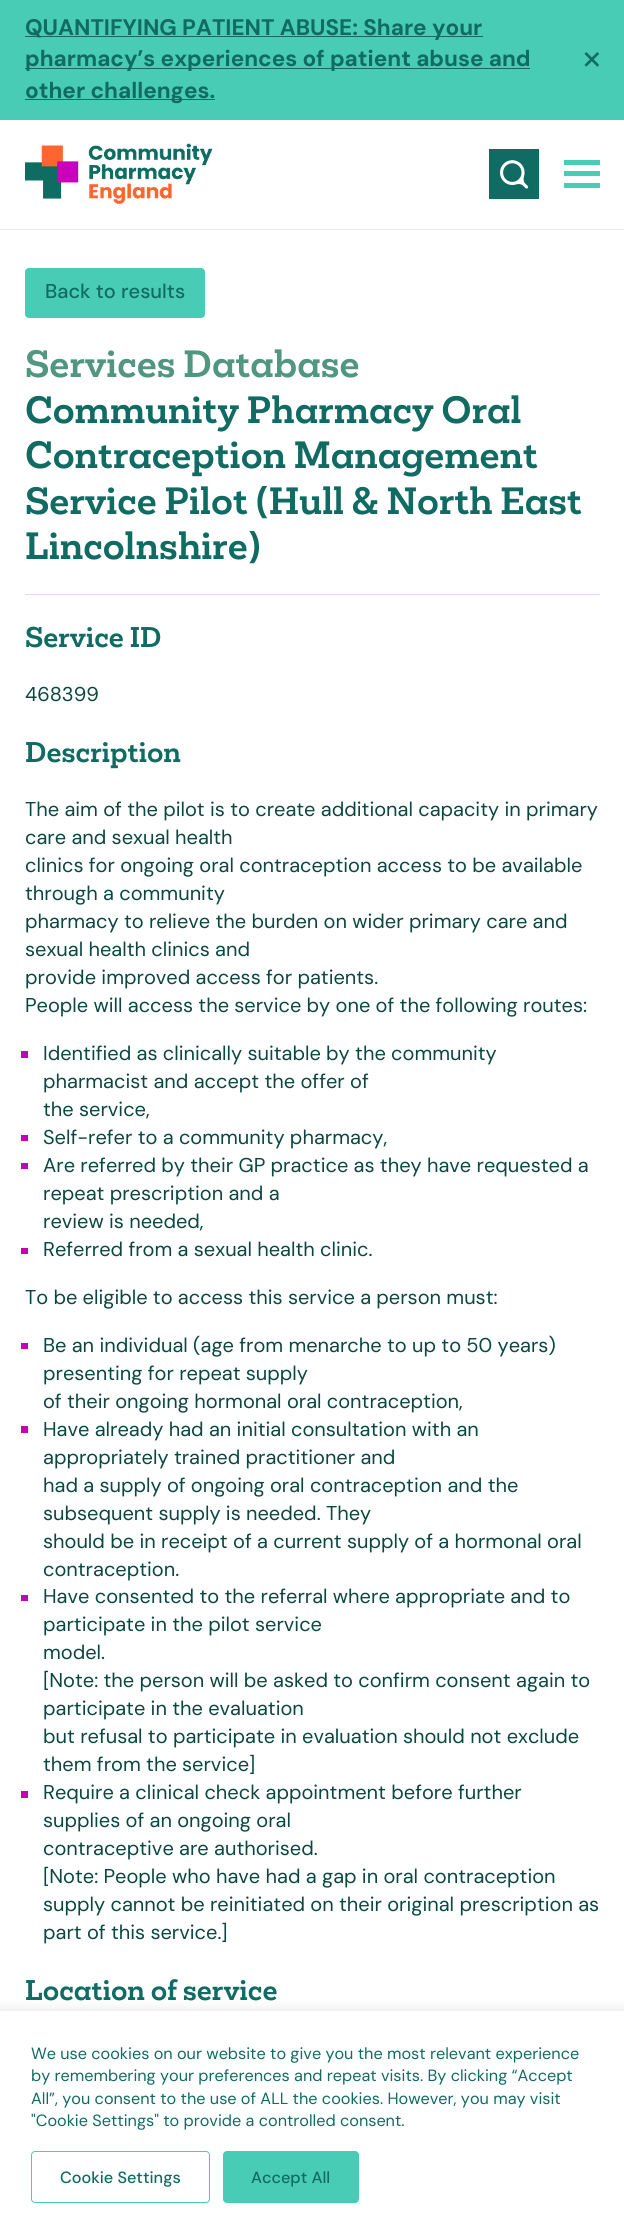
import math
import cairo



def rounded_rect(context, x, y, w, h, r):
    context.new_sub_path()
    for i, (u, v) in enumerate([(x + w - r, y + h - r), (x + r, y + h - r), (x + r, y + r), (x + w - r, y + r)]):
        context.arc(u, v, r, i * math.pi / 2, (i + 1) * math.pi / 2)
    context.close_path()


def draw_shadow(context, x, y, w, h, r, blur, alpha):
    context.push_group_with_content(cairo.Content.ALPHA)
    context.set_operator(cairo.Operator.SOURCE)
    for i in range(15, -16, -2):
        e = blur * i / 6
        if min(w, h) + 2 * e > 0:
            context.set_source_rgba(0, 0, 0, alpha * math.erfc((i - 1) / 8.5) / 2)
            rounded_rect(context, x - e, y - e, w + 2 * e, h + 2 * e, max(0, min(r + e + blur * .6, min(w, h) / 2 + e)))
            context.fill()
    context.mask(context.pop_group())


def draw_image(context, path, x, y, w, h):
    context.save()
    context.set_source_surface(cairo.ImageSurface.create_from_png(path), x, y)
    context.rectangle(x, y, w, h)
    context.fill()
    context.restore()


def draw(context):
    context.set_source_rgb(1, 1, 1)
    context.paint()
    context.set_source_rgb(230 / 255, 231 / 255, 231 / 255)
    context.rectangle(0, 229, 624, 1)
    context.fill()
    context.set_source_rgb(72 / 255, 204 / 255, 181 / 255)
    context.rectangle(0, 0, 624, 120)
    context.fill()
    context.set_source_rgb(16 / 255, 107 / 255, 98 / 255)
    context.rectangle(25, 36, 458, 1)
    context.fill()
    context.rectangle(25, 68, 505, 1)
    context.fill()
    context.rectangle(25, 99, 190, 1)
    context.fill()
    draw_image(context, "images/1.png", 584, 52, 15, 15)
    draw_image(context, "images/2.png", 25, 143, 188, 61)
    context.rectangle(489, 149, 50, 50)
    context.fill()
    draw_image(context, "images/3.png", 500, 160, 29, 29)
    context.set_source_rgb(72 / 255, 204 / 255, 181 / 255)
    context.rectangle(564, 160, 36, 5)
    context.fill()
    context.rectangle(564, 171, 36, 5)
    context.fill()
    context.rectangle(564, 183, 36, 5)
    context.fill()
    rounded_rect(context, 25.5, 268.5, 179, 49, 3.5)
    context.fill_preserve()
    context.set_line_width(1)
    context.stroke()
    context.set_source_rgb(227 / 255, 215 / 255, 1)
    context.rectangle(25, 594, 575, 1)
    context.fill()
    context.set_source_rgb(198 / 255, 0, 181 / 255)
    context.rectangle(21, 1051, 7, 7)
    context.fill()
    context.rectangle(21, 1135, 7, 6)
    context.fill()
    context.rectangle(21, 1163, 7, 6)
    context.fill()
    context.rectangle(21, 1248, 7, 6)
    context.fill()
    context.rectangle(21, 1343, 7, 6)
    context.fill()
    context.rectangle(21, 1426, 7, 7)
    context.fill()
    context.rectangle(21, 1595, 7, 6)
    context.fill()
    context.rectangle(21, 1791, 7, 7)
    context.fill()
    context.set_source_rgb(172 / 255, 171 / 255, 171 / 255)
    draw_shadow(context, 0, 2010, 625, 229, 0, 6, 0.3)
    context.set_source_rgb(1, 1, 1)
    context.rectangle(0, 2011, 624, 228)
    context.fill()
    rounded_rect(context, 31.5, 2151.5, 178, 51, 3.5)
    context.set_source_rgb(72 / 255, 204 / 255, 181 / 255)
    context.stroke()
    rounded_rect(context, 223.5, 2151.5, 135, 51, 3.5)
    context.fill_preserve()
    context.stroke()
    context.select_font_face("DM Sans", cairo.FontSlant.NORMAL, cairo.FontWeight.BOLD)
    context.set_font_size(22.5)
    context.set_source_rgb(16 / 255, 107 / 255, 98 / 255)
    context.move_to(25, 35)
    context.show_text("QUANTIFYING PATIENT ABUSE: Share your")
    context.move_to(25, 66)
    context.show_text("pharmacy’s experiences of patient abuse and")
    context.move_to(25, 98)
    context.show_text("other challenges.")
    context.select_font_face("DM Sans Medium")
    context.set_font_size(20)
    context.move_to(45, 298)
    context.show_text("Back to results")
    context.select_font_face("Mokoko", cairo.FontSlant.NORMAL, cairo.FontWeight.BOLD)
    context.set_font_size(35)
    context.set_source_rgb(81 / 255, 150 / 255, 128 / 255)
    context.move_to(25, 377)
    context.show_text("Services Database")
    context.set_source_rgb(16 / 255, 107 / 255, 98 / 255)
    context.move_to(25, 423)
    context.show_text("Community Pharmacy Oral")
    context.move_to(25, 468)
    context.show_text("Contraception Management")
    context.move_to(25, 514)
    context.show_text("Service Pilot (Hull & North East")
    context.move_to(25, 559)
    context.show_text("Lincolnshire)")
    context.set_font_size(26.25)
    context.move_to(25, 647)
    context.show_text("Service ID")
    context.select_font_face("DM Sans")
    context.set_font_size(20)
    context.set_source_rgb(10 / 255, 71 / 255, 64 / 255)
    context.move_to(25, 701)
    context.show_text("468399")
    context.select_font_face("Mokoko", cairo.FontSlant.NORMAL, cairo.FontWeight.BOLD)
    context.set_font_size(26.25)
    context.set_source_rgb(16 / 255, 107 / 255, 98 / 255)
    context.move_to(25, 762)
    context.show_text("Description")
    context.select_font_face("DM Sans")
    context.set_font_size(20)
    context.set_source_rgb(10 / 255, 71 / 255, 64 / 255)
    context.move_to(25, 816)
    context.show_text("The aim of the pilot is to create additional capacity in primary")
    context.move_to(25, 844)
    context.show_text("care and sexual health")
    context.move_to(25, 872)
    context.show_text("clinics for ongoing oral contraception access to be available")
    context.move_to(25, 900)
    context.show_text("through a community")
    context.move_to(25, 928)
    context.show_text("pharmacy to relieve the burden on wider primary care and")
    context.move_to(25, 956)
    context.show_text("sexual health clinics and")
    context.move_to(25, 984)
    context.show_text("provide improved access for patients.")
    context.move_to(25, 1012)
    context.show_text("People will access the service by one of the following routes:")
    context.move_to(43, 1060)
    context.show_text("Identified as clinically suitable by the community")
    context.move_to(43, 1088)
    context.show_text("pharmacist and accept the offer of")
    context.move_to(43, 1116)
    context.show_text("the service,")
    context.move_to(43, 1144)
    context.show_text("Self-refer to a community pharmacy,")
    context.move_to(43, 1172)
    context.show_text("Are referred by their GP practice as they have requested a")
    context.move_to(43, 1200)
    context.show_text("repeat prescription and a")
    context.move_to(43, 1228)
    context.show_text("review is needed,")
    context.move_to(43, 1256)
    context.show_text("Referred from a sexual health clinic.")
    context.move_to(25, 1304)
    context.show_text("To be eligible to access this service a person must:")
    context.move_to(43, 1352)
    context.show_text("Be an individual (age from menarche to up to 50 years)")
    context.move_to(43, 1380)
    context.show_text("presenting for repeat supply")
    context.move_to(43, 1408)
    context.show_text("of their ongoing hormonal oral contraception,")
    context.move_to(43, 1436)
    context.show_text("Have already had an initial consultation with an")
    context.move_to(43, 1464)
    context.show_text("appropriately trained practitioner and")
    context.move_to(43, 1492)
    context.show_text("had a supply of ongoing oral contraception and the")
    context.move_to(43, 1520)
    context.show_text("subsequent supply is needed. They")
    context.move_to(43, 1548)
    context.show_text("should be in receipt of a current supply of a hormonal oral")
    context.move_to(43, 1576)
    context.show_text("contraception.")
    context.move_to(43, 1603)
    context.show_text("Have consented to the referral where appropriate and to")
    context.move_to(43, 1631)
    context.show_text("participate in the pilot service")
    context.move_to(43, 1659)
    context.show_text("model.")
    context.move_to(43, 1687)
    context.show_text("[Note: the person will be asked to confirm consent again to")
    context.move_to(43, 1715)
    context.show_text("participate in the evaluation")
    context.move_to(43, 1743)
    context.show_text("but refusal to participate in evaluation should not exclude")
    context.move_to(43, 1771)
    context.show_text("them from the service]")
    context.move_to(43, 1799)
    context.show_text("Require a clinical check appointment before further")
    context.move_to(43, 1827)
    context.show_text("supplies of an ongoing oral")
    context.move_to(43, 1855)
    context.show_text("contraceptive are authorised.")
    context.move_to(43, 1883)
    context.show_text("[Note: People who have had a gap in oral contraception")
    context.move_to(43, 1911)
    context.show_text("supply cannot be reinitiated on their original prescription as")
    context.move_to(43, 1939)
    context.show_text("part of this service.]")
    context.select_font_face("Mokoko", cairo.FontSlant.NORMAL, cairo.FontWeight.BOLD)
    context.set_font_size(26.25)
    context.set_source_rgb(16 / 255, 107 / 255, 98 / 255)
    context.move_to(25, 2000)
    context.show_text("Location of service")
    context.select_font_face("DM Sans")
    context.set_font_size(16.25)
    context.move_to(31, 2059)
    context.show_text("We use cookies on our website to give you the most relevant experience")
    context.move_to(31, 2081)
    context.show_text("by remembering your preferences and repeat visits. By clicking “Accept")
    context.move_to(31, 2104)
    context.show_text("All”, you consent to the use of ALL the cookies. However, you may visit")
    context.move_to(31, 2126)
    context.show_text("\"Cookie Settings\" to provide a controlled consent.")
    context.select_font_face("DM Sans Medium")
    context.move_to(60, 2183)
    context.show_text("Cookie Settings")
    context.move_to(251, 2183)
    context.show_text("Accept All")


surface = cairo.ImageSurface(cairo.Format.RGB24, 624, 2239)
context = cairo.Context(surface)
options = cairo.FontOptions()
options.set_hint_metrics(cairo.HintMetrics.OFF)
options.set_hint_style(cairo.HintStyle.NONE)
context.set_font_options(options)
context.set_miter_limit(4)
draw(context)
surface.write_to_png("out.png")
